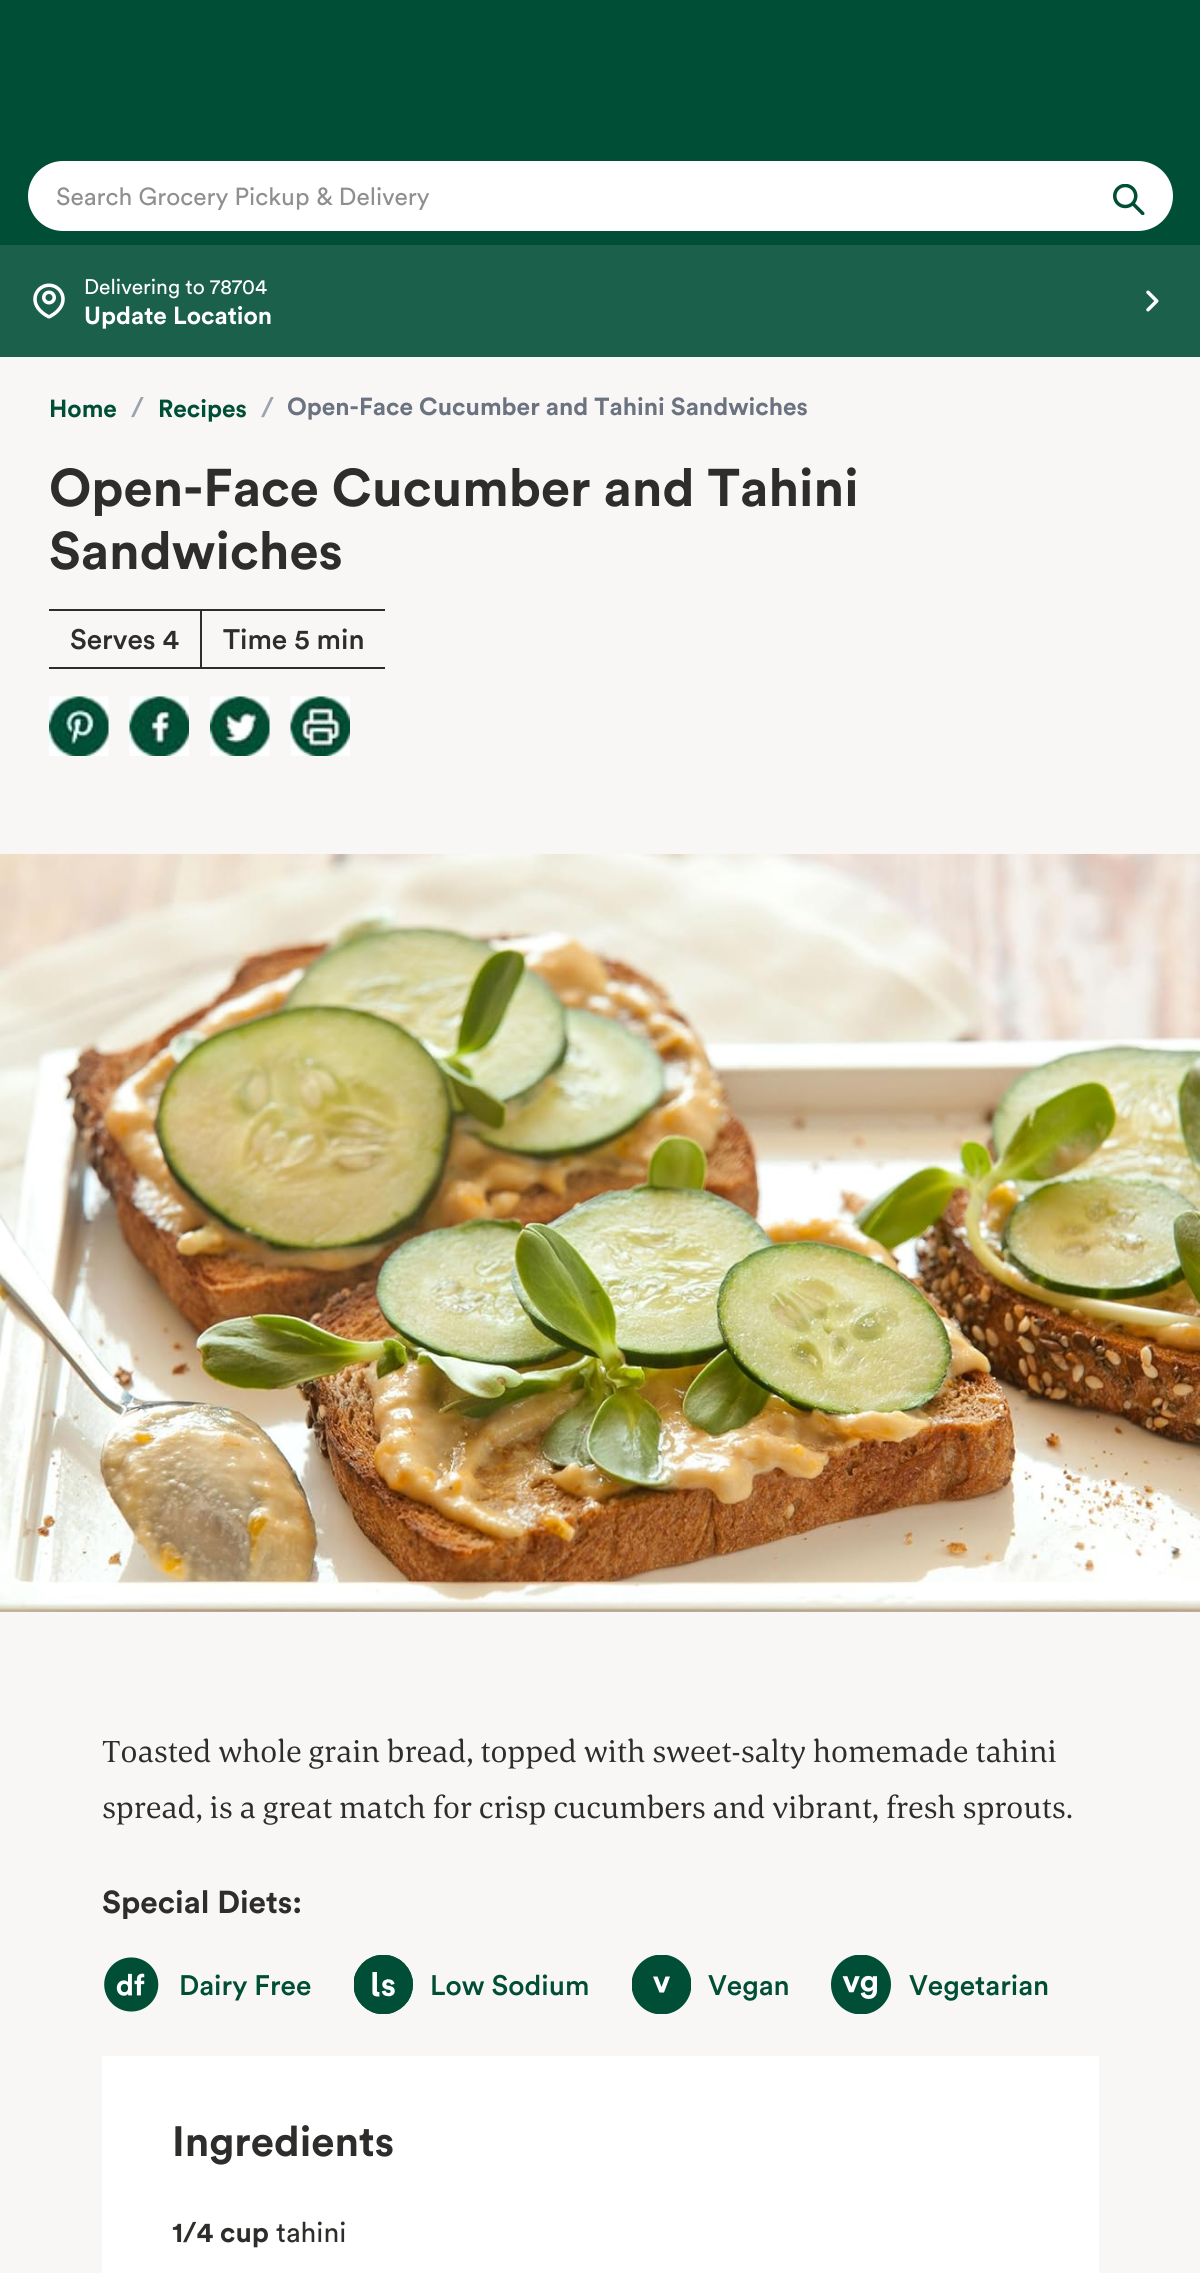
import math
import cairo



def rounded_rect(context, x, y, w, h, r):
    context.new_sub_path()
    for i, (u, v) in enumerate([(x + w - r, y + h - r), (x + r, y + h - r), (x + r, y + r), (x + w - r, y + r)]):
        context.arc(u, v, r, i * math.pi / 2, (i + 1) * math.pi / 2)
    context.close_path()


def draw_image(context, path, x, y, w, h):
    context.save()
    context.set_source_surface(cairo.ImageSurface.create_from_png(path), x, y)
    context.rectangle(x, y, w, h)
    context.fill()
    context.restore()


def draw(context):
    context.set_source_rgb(248 / 255, 247 / 255, 245 / 255)
    context.paint()
    context.set_source_rgb(0, 78 / 255, 54 / 255)
    context.rectangle(0, 0, 1200, 245)
    context.fill()
    context.set_source_rgb(1, 1, 1)
    rounded_rect(context, 28, 161, 1145, 70, 35)
    context.fill()
    draw_image(context, "images/1.png", 1113, 184, 32, 31)
    context.set_source_rgb(26 / 255, 96 / 255, 74 / 255)
    context.rectangle(0, 245, 1200, 112)
    context.fill()
    draw_image(context, "images/2.png", 33, 283, 32, 36)
    draw_image(context, "images/3.png", 1146, 290, 13, 22)
    context.set_source_rgb(46 / 255, 45 / 255, 43 / 255)
    context.rectangle(49, 609, 336, 2)
    context.fill()
    context.rectangle(49, 667, 336, 2)
    context.fill()
    context.rectangle(200, 611, 2, 56)
    context.fill()
    draw_image(context, "images/4.png", 49, 696, 60, 60)
    draw_image(context, "images/5.png", 129, 696, 60, 60)
    draw_image(context, "images/6.png", 210, 696, 60, 60)
    draw_image(context, "images/7.png", 290, 696, 60, 60)
    draw_image(context, "images/8.png", 0, 854, 1200, 758)
    draw_image(context, "images/9.png", 104, 1957, 55, 55)
    draw_image(context, "images/10.png", 354, 1955, 59, 59)
    context.save()
    context.rectangle(632, 1955, 59, 59)
    context.clip()
    context.set_source_rgb(0, 78 / 255, 54 / 255)
    context.arc(661.5, 1984.5, 30, 0, 2 * math.pi)
    context.fill()
    context.restore()
    context.set_source_rgb(1, 1, 1)
    context.new_path()
    context.move_to(664, 1992.5)
    context.line_to(659.5, 1992.5)
    context.line_to(653, 1976.5)
    context.line_to(657.5, 1976.5)
    context.line_to(661.5, 1987)
    context.line_to(665.5, 1976.5)
    context.line_to(670, 1976.5)
    context.close_path()
    context.fill()
    draw_image(context, "images/11.png", 831, 1955, 60, 59)
    context.rectangle(102, 2056, 997, 217)
    context.fill()
    context.select_font_face("Circular")
    context.set_font_size(24.5)
    context.set_source_rgb(143 / 255, 143 / 255, 143 / 255)
    context.move_to(56, 205)
    context.show_text("Search Grocery Pickup & Delivery")
    context.set_font_size(21)
    context.set_source_rgb(1, 1, 1)
    context.move_to(84, 294)
    context.show_text("Delivering to 78704")
    context.select_font_face("Circular", cairo.FontSlant.NORMAL, cairo.FontWeight.BOLD)
    context.set_font_size(24.5)
    context.move_to(84, 324)
    context.show_text("Update Location")
    context.set_source_rgb(0, 78 / 255, 54 / 255)
    context.move_to(49, 417)
    context.show_text("Home")
    context.select_font_face("Circular Medium")
    context.set_font_size(28)
    context.set_source_rgb(156 / 255, 163 / 255, 175 / 255)
    context.move_to(131, 417)
    context.show_text("/")
    context.select_font_face("Circular", cairo.FontSlant.NORMAL, cairo.FontWeight.BOLD)
    context.set_font_size(24.5)
    context.set_source_rgb(0, 78 / 255, 54 / 255)
    context.move_to(158, 417)
    context.show_text("Recipes")
    context.select_font_face("Circular Medium")
    context.set_font_size(28)
    context.set_source_rgb(156 / 255, 163 / 255, 175 / 255)
    context.move_to(261, 417)
    context.show_text("/")
    context.select_font_face("Circular", cairo.FontSlant.NORMAL, cairo.FontWeight.BOLD)
    context.set_font_size(24.5)
    context.set_source_rgb(107 / 255, 114 / 255, 128 / 255)
    context.move_to(287, 415)
    context.show_text("Open-Face Cucumber and Tahini Sandwiches")
    context.set_font_size(52.5)
    context.set_source_rgb(46 / 255, 45 / 255, 43 / 255)
    context.move_to(49, 506)
    context.show_text("Open-Face Cucumber and Tahini")
    context.move_to(49, 569)
    context.show_text("Sandwiches")
    context.select_font_face("Circular Medium")
    context.set_font_size(28)
    context.move_to(70, 649)
    context.show_text("Serves 4")
    context.move_to(223, 649)
    context.show_text("Time 5 min")
    context.select_font_face("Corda")
    context.set_font_size(31.5)
    context.move_to(102, 1762)
    context.show_text("Toasted whole grain bread, topped with sweet-salty homemade tahini")
    context.move_to(102, 1818)
    context.show_text("spread, is a great match for crisp cucumbers and vibrant, fresh sprouts.")
    context.select_font_face("Circular", cairo.FontSlant.NORMAL, cairo.FontWeight.BOLD)
    context.move_to(102, 1913)
    context.show_text("Special Diets:")
    context.select_font_face("Circular Medium")
    context.set_font_size(28)
    context.set_source_rgb(0, 78 / 255, 54 / 255)
    context.move_to(179, 1995)
    context.show_text("Dairy Free")
    context.move_to(430, 1995)
    context.show_text("Low Sodium")
    context.move_to(708, 1995)
    context.show_text("Vegan")
    context.move_to(909, 1995)
    context.show_text("Vegetarian")
    context.select_font_face("Circular", cairo.FontSlant.NORMAL, cairo.FontWeight.BOLD)
    context.set_font_size(42)
    context.set_source_rgb(46 / 255, 45 / 255, 43 / 255)
    context.move_to(172, 2156)
    context.show_text("Ingredients")
    context.set_font_size(28)
    context.move_to(172, 2242)
    context.show_text("1/4 cup")
    context.select_font_face("Circular")
    context.move_to(276, 2242)
    context.show_text("tahini")


surface = cairo.ImageSurface(cairo.Format.RGB24, 1200, 2273)
context = cairo.Context(surface)
options = cairo.FontOptions()
options.set_hint_metrics(cairo.HintMetrics.OFF)
options.set_hint_style(cairo.HintStyle.NONE)
context.set_font_options(options)
context.set_miter_limit(4)
draw(context)
surface.write_to_png("out.png")
